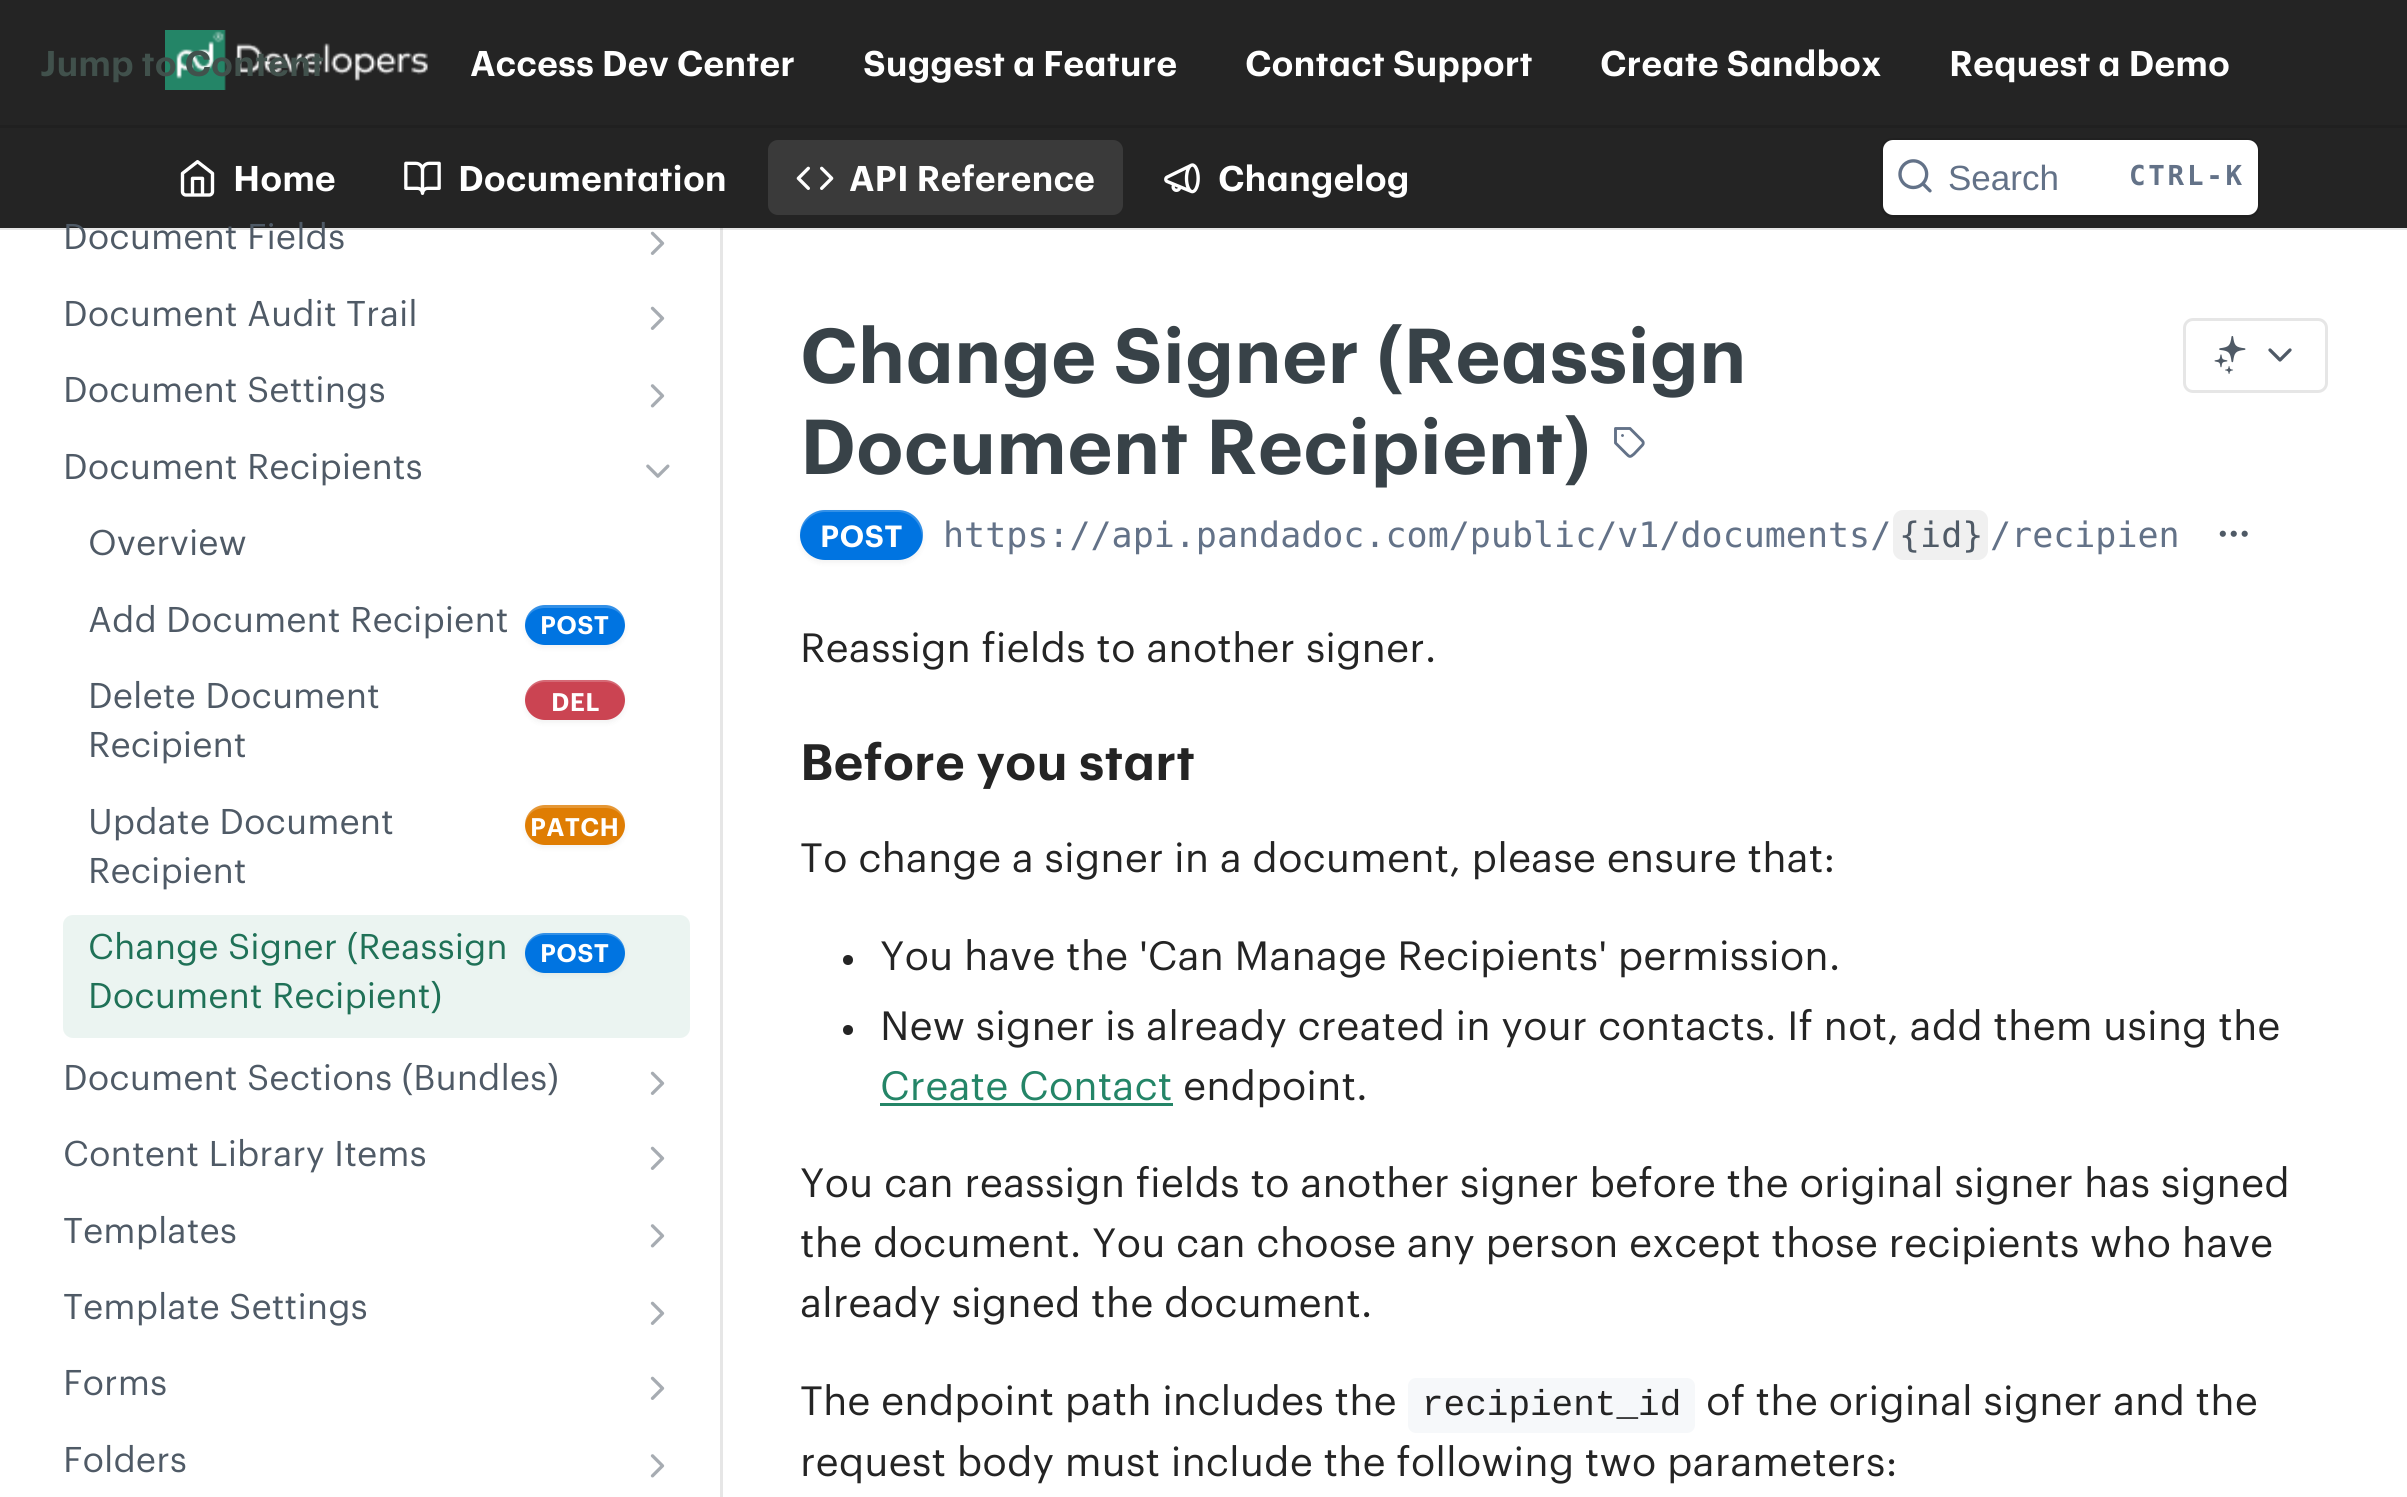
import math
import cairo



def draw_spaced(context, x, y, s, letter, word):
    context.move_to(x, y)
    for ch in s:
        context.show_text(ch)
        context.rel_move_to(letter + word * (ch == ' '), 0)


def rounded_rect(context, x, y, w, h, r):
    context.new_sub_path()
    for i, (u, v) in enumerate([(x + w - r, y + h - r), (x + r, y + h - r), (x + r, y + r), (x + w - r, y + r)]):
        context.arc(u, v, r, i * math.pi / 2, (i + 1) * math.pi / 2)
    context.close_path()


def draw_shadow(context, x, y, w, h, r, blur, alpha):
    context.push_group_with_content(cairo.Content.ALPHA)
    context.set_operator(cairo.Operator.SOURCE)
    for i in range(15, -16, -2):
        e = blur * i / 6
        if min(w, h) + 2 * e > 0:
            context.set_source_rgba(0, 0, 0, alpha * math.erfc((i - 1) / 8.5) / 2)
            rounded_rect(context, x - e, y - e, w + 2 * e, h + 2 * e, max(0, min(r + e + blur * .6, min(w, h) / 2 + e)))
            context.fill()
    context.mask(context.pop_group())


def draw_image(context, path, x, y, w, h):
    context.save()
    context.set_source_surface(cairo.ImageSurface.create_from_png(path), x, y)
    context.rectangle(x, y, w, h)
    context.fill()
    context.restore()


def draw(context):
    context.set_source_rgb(1, 1, 1)
    context.paint()
    context.set_source_rgb(230 / 255, 230 / 255, 230 / 255)
    context.rectangle(720, 228, 3, 1269)
    context.fill()
    context.set_source_rgba(0, 0, 0, 0.1)
    context.new_path()
    context.move_to(0, 228)
    context.line_to(0, 230)
    context.line_to(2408, 230)
    context.line_to(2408, 3)
    context.line_to(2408, 228)
    context.close_path()
    context.fill()
    context.set_source_rgb(36 / 255, 36 / 255, 36 / 255)
    context.rectangle(0, 0, 2407, 228)
    context.fill()
    context.set_source_rgb(32 / 255, 32 / 255, 32 / 255)
    context.rectangle(0, 125, 2407, 3)
    context.fill()
    draw_image(context, "images/1.png", 165, 30, 263, 60)
    draw_image(context, "images/2.png", 180, 160, 35, 37)
    draw_image(context, "images/3.png", 404, 161, 37, 34)
    context.set_source_rgb(58 / 255, 58 / 255, 58 / 255)
    rounded_rect(context, 768, 140, 355, 75, 10)
    context.fill()
    draw_image(context, "images/4.png", 796, 166, 38, 24)
    draw_image(context, "images/5.png", 1164, 163, 36, 31)
    rounded_rect(context, 1881.5, 139.5, 377, 77, 11.5)
    context.set_source_rgb(32 / 255, 32 / 255, 32 / 255)
    context.set_line_width(3)
    context.stroke()
    context.set_source_rgb(1, 1, 1)
    rounded_rect(context, 1883, 140, 375, 75, 10)
    context.fill()
    draw_image(context, "images/6.png", 1898, 159, 34, 34)
    draw_image(context, "images/7.png", 650, 231, 15, 24)
    draw_image(context, "images/7.png", 650, 306, 15, 24)
    draw_image(context, "images/8.png", 650, 384, 15, 24)
    draw_image(context, "images/9.png", 646, 464, 24, 14)
    context.set_source_rgb(0, 0, 0)
    draw_shadow(context, 525, 608, 100, 40, 20, 2.5, 0.05)
    context.set_source_rgb(0, 116 / 255, 225 / 255)
    rounded_rect(context, 525, 605, 100, 40, 20)
    context.fill()
    context.set_source_rgba(1, 1, 1, 0.2)
    context.new_path()
    context.move_to(545, 608)
    context.line_to(605, 608)
    context.curve_to(616, 608, 624, 615, 625, 626)
    context.curve_to(626, 617, 619, 607, 609, 605)
    context.line_to(595, 605)
    context.line_to(541, 605)
    context.curve_to(531, 607, 524, 617, 525, 626)
    context.curve_to(526, 615, 534, 608, 545, 608)
    context.close_path()
    context.fill()
    context.set_source_rgb(0, 0, 0)
    draw_shadow(context, 525, 683, 100, 40, 20, 2.5, 0.05)
    context.set_source_rgb(203 / 255, 68 / 255, 82 / 255)
    rounded_rect(context, 525, 680, 100, 40, 20)
    context.fill()
    context.set_source_rgba(1, 1, 1, 0.2)
    context.new_path()
    context.move_to(545, 682)
    context.line_to(605, 682)
    context.curve_to(616, 682, 624, 690, 625, 701)
    context.curve_to(625, 691, 619, 682, 609, 680)
    context.line_to(595, 680)
    context.line_to(541, 680)
    context.curve_to(531, 682, 525, 691, 525, 701)
    context.curve_to(526, 690, 534, 682, 545, 682)
    context.close_path()
    context.fill()
    context.set_source_rgb(0, 0, 0)
    draw_shadow(context, 525, 808, 100, 40, 20, 2.5, 0.05)
    context.set_source_rgb(223 / 255, 125 / 255, 3 / 255)
    rounded_rect(context, 525, 805, 100, 40, 20)
    context.fill()
    context.set_source_rgba(1, 1, 1, 0.2)
    context.new_path()
    context.move_to(545, 808)
    context.line_to(605, 808)
    context.curve_to(616, 808, 624, 815, 625, 826)
    context.curve_to(626, 817, 619, 807, 609, 805)
    context.line_to(595, 805)
    context.line_to(541, 805)
    context.curve_to(531, 807, 524, 817, 525, 826)
    context.curve_to(526, 815, 534, 808, 545, 808)
    context.close_path()
    context.fill()
    context.set_source_rgb(235 / 255, 244 / 255, 241 / 255)
    rounded_rect(context, 63, 915, 627, 123, 10)
    context.fill()
    context.set_source_rgb(0, 0, 0)
    draw_shadow(context, 525, 935, 100, 40, 20, 2.5, 0.05)
    context.set_source_rgb(0, 116 / 255, 225 / 255)
    rounded_rect(context, 525, 933, 100, 40, 20)
    context.fill()
    context.set_source_rgba(1, 1, 1, 0.2)
    context.new_path()
    context.move_to(545, 935)
    context.line_to(605, 935)
    context.curve_to(616, 935, 624, 943, 625, 954)
    context.curve_to(625, 944, 619, 935, 609, 933)
    context.line_to(595, 933)
    context.line_to(541, 933)
    context.curve_to(531, 935, 525, 944, 525, 954)
    context.curve_to(526, 943, 534, 935, 545, 935)
    context.close_path()
    context.fill()
    draw_image(context, "images/7.png", 650, 1071, 15, 24)
    draw_image(context, "images/7.png", 650, 1146, 15, 24)
    draw_image(context, "images/8.png", 650, 1224, 15, 24)
    draw_image(context, "images/7.png", 650, 1301, 15, 24)
    draw_image(context, "images/7.png", 650, 1376, 15, 24)
    draw_image(context, "images/8.png", 650, 1454, 15, 24)
    context.new_path()
    context.move_to(1622.5, 435.5)
    context.line_to(1622.5, 435.5)
    context.move_to(1642.5, 445)
    context.line_to(1634, 454)
    context.curve_to(1630, 457.5, 1629.5, 457, 1626, 453.5)
    context.line_to(1615.5, 443)
    context.line_to(1615.5, 428.5)
    context.line_to(1630, 428.5)
    context.line_to(1642.5, 441)
    context.curve_to(1643.5, 442, 1643.5, 444, 1642.5, 445)
    context.close_path()
    context.set_source_rgb(99 / 255, 114 / 255, 136 / 255)
    context.set_line_width(2.9)
    context.set_line_cap(cairo.LineCap.ROUND)
    context.set_line_join(cairo.LineJoin.ROUND)
    context.stroke()
    rounded_rect(context, 2184.5, 319.5, 142, 72, 8.5)
    context.set_source_rgb(230 / 255, 230 / 255, 230 / 255)
    context.set_line_width(3)
    context.set_line_cap(cairo.LineCap.BUTT)
    context.set_line_join(cairo.LineJoin.MITER)
    context.stroke()
    draw_image(context, "images/10.png", 2214, 336, 32, 38)
    context.new_path()
    context.move_to(2270, 350)
    context.line_to(2280, 360)
    context.line_to(2290, 350)
    context.set_source_rgb(79 / 255, 90 / 255, 102 / 255)
    context.set_line_width(3.3)
    context.set_line_cap(cairo.LineCap.ROUND)
    context.set_line_join(cairo.LineJoin.ROUND)
    context.stroke()
    context.set_source_rgb(0, 0, 0)
    draw_shadow(context, 800, 513, 123, 50, 25, 2.5, 0.05)
    context.set_source_rgb(0, 116 / 255, 225 / 255)
    rounded_rect(context, 800, 510, 123, 50, 25)
    context.fill()
    context.set_source_rgba(1, 1, 1, 0.2)
    context.new_path()
    context.move_to(825, 512)
    context.line_to(898, 512)
    context.curve_to(911, 512, 922, 524, 922, 538)
    context.curve_to(922, 540, 922, 543, 921, 545)
    context.curve_to(922, 542, 923, 539, 923, 535)
    context.curve_to(923, 521, 912, 510, 898, 510)
    context.line_to(825, 510)
    context.curve_to(811, 510, 800, 521, 800, 535)
    context.line_to(800, 536)
    context.curve_to(801, 523, 812, 512, 825, 512)
    context.close_path()
    context.fill()
    context.set_source_rgb(240 / 255, 240 / 255, 240 / 255)
    rounded_rect(context, 1893, 510, 95, 50, 10)
    context.fill()
    draw_image(context, "images/11.png", 2219, 530, 29, 7)
    context.set_source_rgb(36 / 255, 36 / 255, 36 / 255)
    context.arc(848, 960, 5, 0, 2 * math.pi)
    context.fill()
    context.arc(848, 1030, 5, 0, 2 * math.pi)
    context.fill()
    context.set_source_rgb(36 / 255, 133 / 255, 103 / 255)
    context.rectangle(880, 1103, 293, 3)
    context.fill()
    context.set_source_rgb(246 / 255, 248 / 255, 250 / 255)
    rounded_rect(context, 1408, 1378, 287, 55, 8)
    context.fill()
    context.select_font_face("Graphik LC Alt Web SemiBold")
    context.set_font_size(35)
    context.set_source_rgb(1, 1, 1)
    context.move_to(470, 76)
    context.show_text("Access Dev Center")
    context.move_to(863, 76)
    context.show_text("Suggest a Feature")
    context.move_to(1245, 76)
    context.show_text("Contact Support")
    context.move_to(1600, 76)
    context.show_text("Create Sandbox")
    context.move_to(1949, 76)
    context.show_text("Request a Demo")
    context.set_source_rgb(65 / 255, 81 / 255, 76 / 255)
    context.move_to(40, 76)
    context.show_text("Jump to Content")
    context.set_source_rgb(1, 1, 1)
    context.move_to(233, 191)
    context.show_text("Home")
    context.move_to(458, 191)
    context.show_text("Documentation")
    context.move_to(849, 191)
    context.show_text("API Reference")
    context.move_to(1218, 191)
    context.show_text("Changelog")
    context.select_font_face("Liberation Sans")
    context.set_source_rgb(99 / 255, 114 / 255, 136 / 255)
    context.move_to(1948, 190)
    context.show_text("Search")
    context.select_font_face("DejaVu Sans Mono", cairo.FontSlant.NORMAL, cairo.FontWeight.BOLD)
    context.set_font_size(27.5)
    draw_spaced(context, 2129, 185, "CTRL-K", 2.75, 0)
    context.select_font_face("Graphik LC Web")
    context.set_font_size(35)
    context.set_source_rgb(79 / 255, 90 / 255, 102 / 255)
    context.move_to(63, 249)
    context.show_text("Document Fields")
    context.move_to(63, 326)
    context.show_text("Document Audit Trail")
    context.move_to(63, 402)
    context.show_text("Document Settings")
    context.move_to(63, 479)
    context.show_text("Document Recipients")
    context.move_to(88, 555)
    context.show_text("Overview")
    context.move_to(88, 632)
    context.show_text("Add Document Recipient")
    context.select_font_face("Graphik LC Alt Web SemiBold")
    context.set_font_size(25)
    context.set_source_rgb(1, 1, 1)
    draw_spaced(context, 540, 634, "POST", 0.25, 0)
    context.select_font_face("Graphik LC Web")
    context.set_font_size(35)
    context.set_source_rgb(79 / 255, 90 / 255, 102 / 255)
    context.move_to(88, 708)
    context.show_text("Delete Document")
    context.move_to(88, 757)
    context.show_text("Recipient")
    context.select_font_face("Graphik LC Alt Web SemiBold")
    context.set_font_size(25)
    context.set_source_rgb(1, 1, 1)
    draw_spaced(context, 551, 711, "DEL", 0.25, 0)
    context.select_font_face("Graphik LC Web")
    context.set_font_size(35)
    context.set_source_rgb(79 / 255, 90 / 255, 102 / 255)
    context.move_to(88, 834)
    context.show_text("Update Document")
    context.move_to(88, 883)
    context.show_text("Recipient")
    context.select_font_face("Graphik LC Alt Web SemiBold")
    context.set_font_size(25)
    context.set_source_rgb(1, 1, 1)
    draw_spaced(context, 530, 836, "PATCH", 0.25, 0)
    context.select_font_face("Graphik LC Web")
    context.set_font_size(35)
    context.set_source_rgb(31 / 255, 113 / 255, 87 / 255)
    context.move_to(88, 959)
    context.show_text("Change Signer (Reassign")
    context.move_to(88, 1008)
    context.show_text("Document Recipient)")
    context.select_font_face("Graphik LC Alt Web SemiBold")
    context.set_font_size(25)
    context.set_source_rgb(1, 1, 1)
    draw_spaced(context, 540, 962, "POST", 0.25, 0)
    context.select_font_face("Graphik LC Web")
    context.set_font_size(35)
    context.set_source_rgb(79 / 255, 90 / 255, 102 / 255)
    context.move_to(63, 1090)
    context.show_text("Document Sections (Bundles)")
    context.move_to(63, 1166)
    context.show_text("Content Library Items")
    context.move_to(63, 1243)
    context.show_text("Templates")
    context.move_to(63, 1319)
    context.show_text("Template Settings")
    context.move_to(63, 1395)
    context.show_text("Forms")
    context.move_to(63, 1472)
    context.show_text("Folders")
    context.select_font_face("Graphik LC Alt Web SemiBold")
    context.set_font_size(76)
    context.set_source_rgb(56 / 255, 66 / 255, 72 / 255)
    context.move_to(800, 383)
    context.show_text("Change Signer (Reassign")
    context.move_to(800, 474)
    context.show_text("Document Recipient)")
    context.set_font_size(30)
    context.set_source_rgb(1, 1, 1)
    draw_spaced(context, 820, 547, "POST", 0.25, 0)
    context.select_font_face("DejaVu Sans Mono")
    context.set_font_size(35)
    context.set_source_rgb(99 / 255, 114 / 255, 136 / 255)
    context.move_to(943, 547)
    context.show_text("https://api.pandadoc.com/public/v1/documents/")
    context.set_source_rgb(79 / 255, 90 / 255, 102 / 255)
    context.move_to(1899, 547)
    context.show_text("{id}")
    context.set_source_rgb(99 / 255, 114 / 255, 136 / 255)
    context.move_to(1990, 547)
    context.show_text("/recipien")
    context.select_font_face("Graphik LC Web")
    context.set_font_size(40)
    context.set_source_rgb(36 / 255, 36 / 255, 36 / 255)
    context.move_to(800, 662)
    context.show_text("Reassign fields to another signer.")
    context.select_font_face("Graphik LC Alt Web SemiBold")
    context.set_font_size(50)
    context.move_to(800, 780)
    context.show_text("Before you start")
    context.select_font_face("Graphik LC Web")
    context.set_font_size(40)
    context.move_to(800, 872)
    context.show_text("To change a signer in a document, please ensure that:")
    context.move_to(880, 970)
    context.show_text("You have the 'Can Manage Recipients' permission.")
    context.move_to(880, 1040)
    context.show_text("New signer is already created in your contacts. If not, add them using the")
    context.set_source_rgb(36 / 255, 133 / 255, 103 / 255)
    context.move_to(880, 1100)
    context.show_text("Create Contact")
    context.set_source_rgb(36 / 255, 36 / 255, 36 / 255)
    context.move_to(1183, 1100)
    context.show_text("endpoint.")
    context.move_to(800, 1197)
    context.show_text("You can reassign fields to another signer before the original signer has signed")
    context.move_to(800, 1257)
    context.show_text("the document. You can choose any person except those recipients who have")
    context.move_to(800, 1317)
    context.show_text("already signed the document.")
    context.move_to(800, 1415)
    context.show_text("The endpoint path includes the")
    context.select_font_face("Liberation Mono")
    context.set_font_size(36)
    context.move_to(1422, 1415)
    context.show_text("recipient_id")
    context.select_font_face("Graphik LC Web")
    context.set_font_size(40)
    context.move_to(1706, 1415)
    context.show_text("of the original signer and the")
    context.move_to(800, 1476)
    context.show_text("request body must include the following two parameters:")


surface = cairo.ImageSurface(cairo.Format.RGB24, 2407, 1497)
context = cairo.Context(surface)
options = cairo.FontOptions()
options.set_hint_metrics(cairo.HintMetrics.OFF)
options.set_hint_style(cairo.HintStyle.NONE)
context.set_font_options(options)
context.set_miter_limit(4)
draw(context)
surface.write_to_png("out.png")
